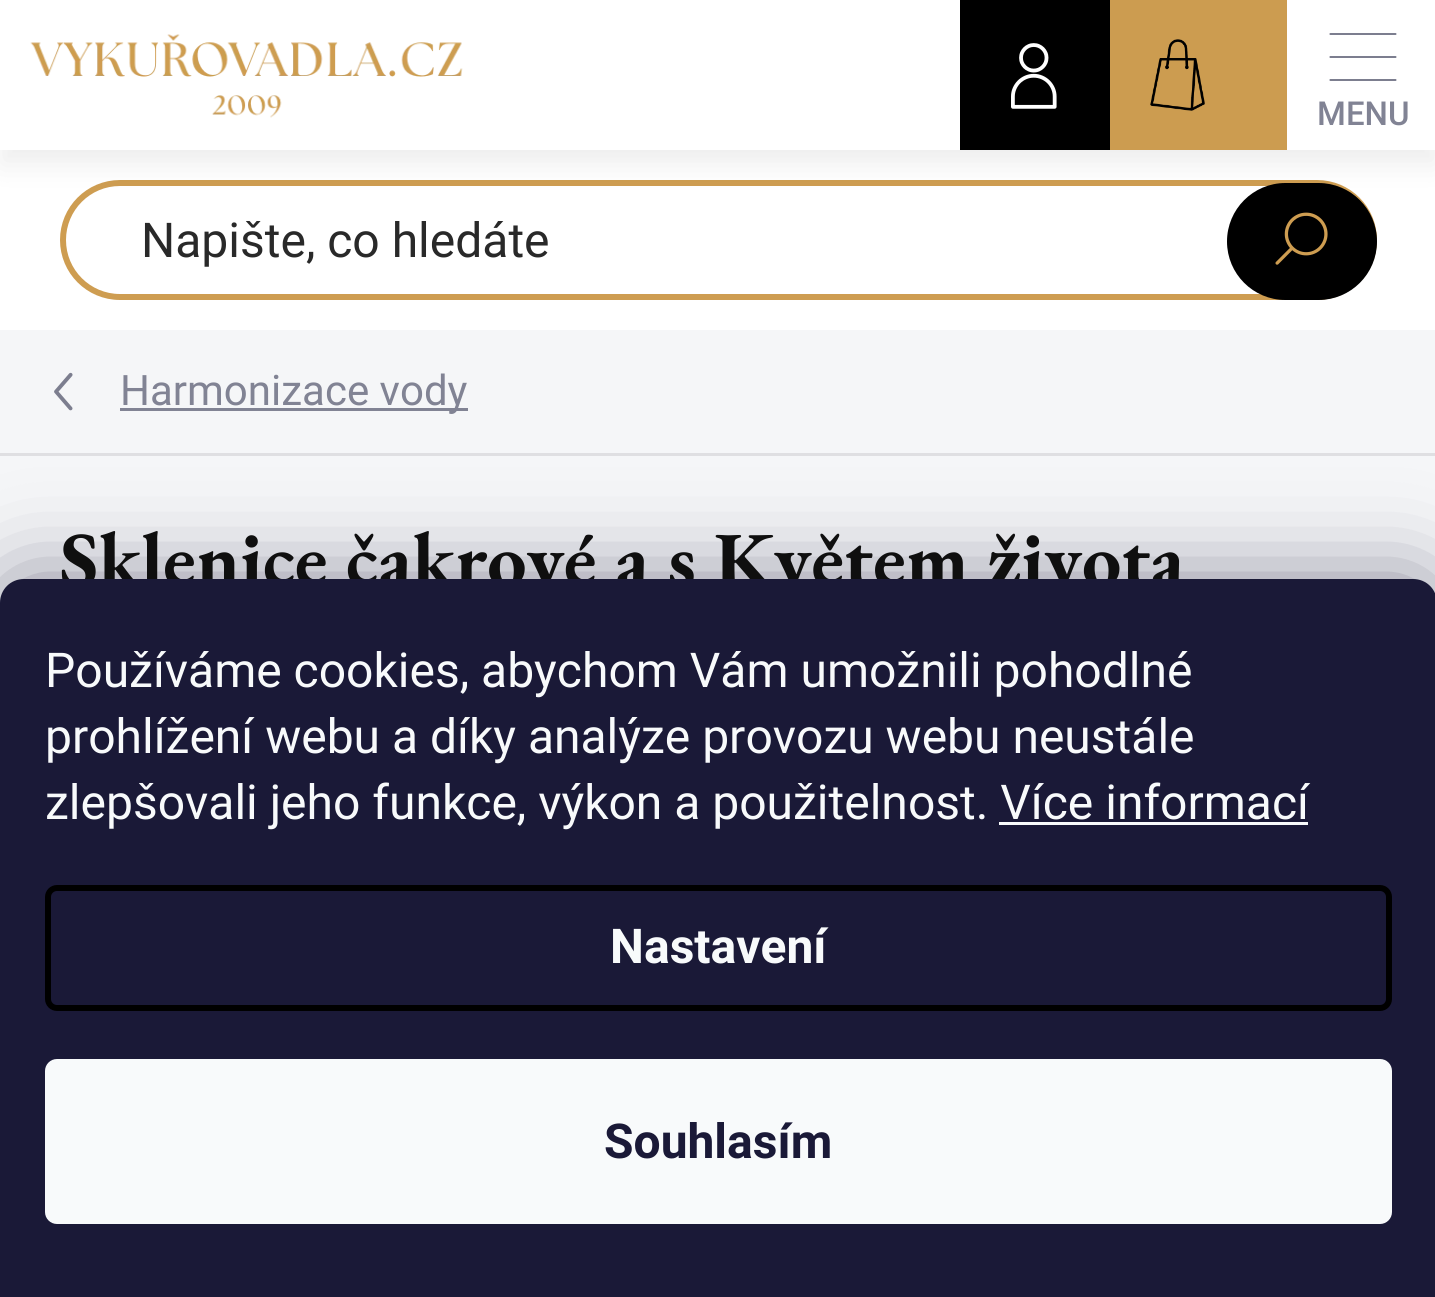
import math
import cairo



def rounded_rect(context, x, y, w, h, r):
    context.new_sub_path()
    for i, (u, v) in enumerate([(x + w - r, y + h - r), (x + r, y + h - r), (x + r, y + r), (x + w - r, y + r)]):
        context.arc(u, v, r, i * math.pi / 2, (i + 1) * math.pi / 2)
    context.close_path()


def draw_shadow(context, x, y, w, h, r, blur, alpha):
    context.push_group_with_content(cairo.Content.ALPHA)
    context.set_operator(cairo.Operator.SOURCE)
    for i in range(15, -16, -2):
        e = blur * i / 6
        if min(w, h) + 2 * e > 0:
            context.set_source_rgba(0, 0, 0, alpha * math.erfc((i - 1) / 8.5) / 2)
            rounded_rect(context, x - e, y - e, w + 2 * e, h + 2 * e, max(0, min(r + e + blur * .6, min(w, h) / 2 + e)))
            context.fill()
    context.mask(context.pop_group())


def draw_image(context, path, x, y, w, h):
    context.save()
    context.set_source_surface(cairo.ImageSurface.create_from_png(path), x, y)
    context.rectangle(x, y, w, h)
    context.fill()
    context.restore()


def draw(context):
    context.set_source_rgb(245 / 255, 246 / 255, 248 / 255)
    context.paint()
    context.set_source_rgb(1, 1, 1)
    context.rectangle(0, 150, 1435, 180)
    context.fill()
    rounded_rect(context, 63, 183, 1311, 114, 57)
    context.set_source_rgb(206 / 255, 157 / 255, 81 / 255)
    context.set_line_width(6)
    context.stroke()
    context.set_source_rgb(0, 0, 0)
    rounded_rect(context, 1227, 183, 150, 117, 58.5)
    context.fill()
    context.set_source_rgb(0, 0, 0)
    draw_shadow(context, 0, 15, 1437, 150, 0, 15, 0.07)
    context.set_source_rgb(1, 1, 1)
    context.rectangle(0, 0, 1435, 150)
    context.fill()
    draw_image(context, "images/1.png", 30, 34, 433, 84)
    context.set_source_rgb(0, 0, 0)
    context.rectangle(960, 0, 150, 150)
    context.fill()
    draw_image(context, "images/2.png", 1011, 43, 46, 66)
    context.set_source_rgb(204 / 255, 156 / 255, 80 / 255)
    context.rectangle(1110, 0, 177, 150)
    context.fill()
    draw_image(context, "images/3.png", 1150, 39, 55, 72)
    draw_image(context, "images/4.png", 1329, 33, 68, 48)
    draw_image(context, "images/5.png", 1275, 212, 53, 53)
    context.set_source_rgb(223 / 255, 223 / 255, 226 / 255)
    context.rectangle(0, 453, 1435, 3)
    context.fill()
    draw_image(context, "images/6.png", 54, 372, 19, 39)
    context.set_source_rgb(129 / 255, 131 / 255, 148 / 255)
    context.rectangle(120, 408, 348, 3)
    context.fill()
    context.set_source_rgb(27 / 255, 25 / 255, 57 / 255)
    draw_shadow(context, 0, 579, 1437, 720, 24, 45, 0.5)
    context.select_font_face("Roboto Medium")
    context.set_font_size(33)
    context.set_source_rgb(129 / 255, 131 / 255, 148 / 255)
    context.move_to(1317, 125)
    context.show_text("MENU")
    context.select_font_face("Roboto")
    context.set_font_size(48)
    context.set_source_rgb(41 / 255, 41 / 255, 41 / 255)
    context.move_to(141, 257)
    context.show_text("Napište, co hledáte")
    context.set_font_size(42)
    context.set_source_rgb(129 / 255, 131 / 255, 148 / 255)
    context.move_to(120, 405)
    context.show_text("Harmonizace vody")
    context.select_font_face("EB Garamond", cairo.FontSlant.NORMAL, cairo.FontWeight.BOLD)
    context.set_font_size(78)
    context.set_source_rgb(15 / 255, 15 / 255, 15 / 255)
    context.move_to(60, 586)
    context.show_text("Sklenice čakrové a s Květem života")
    context.set_source_rgb(26 / 255, 25 / 255, 55 / 255)
    context.new_path()
    context.move_to(24, 579)
    context.line_to(1413, 579)
    context.curve_to(1426.5, 579, 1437, 589.5, 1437, 603)
    context.line_to(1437, 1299)
    context.line_to(0, 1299)
    context.line_to(0, 603)
    context.curve_to(0, 589.5, 10.5, 579, 24, 579)
    context.close_path()
    context.fill()
    context.select_font_face("Roboto")
    context.set_font_size(48)
    context.set_source_rgb(248 / 255, 250 / 255, 251 / 255)
    context.move_to(45, 687)
    context.show_text("Používáme cookies, abychom Vám umožnili pohodlné")
    context.move_to(45, 753)
    context.show_text("prohlížení webu a díky analýze provozu webu neustále")
    context.move_to(45, 819)
    context.show_text("zlepšovali jeho funkce, výkon a použitelnost. Více informací")
    context.rectangle(999, 822, 309, 3)
    context.fill()
    rounded_rect(context, 48, 888, 1341, 120, 9)
    context.set_source_rgb(0, 0, 0)
    context.stroke()
    context.select_font_face("Roboto", cairo.FontSlant.NORMAL, cairo.FontWeight.BOLD)
    context.set_source_rgb(248 / 255, 250 / 255, 251 / 255)
    context.move_to(610, 963)
    context.show_text("Nastavení")
    rounded_rect(context, 45, 1059, 1347, 165, 12)
    context.fill()
    context.set_source_rgb(26 / 255, 25 / 255, 55 / 255)
    context.move_to(604, 1158)
    context.show_text("Souhlasím")


surface = cairo.ImageSurface(cairo.Format.RGB24, 1435, 1297)
context = cairo.Context(surface)
options = cairo.FontOptions()
options.set_hint_metrics(cairo.HintMetrics.OFF)
options.set_hint_style(cairo.HintStyle.NONE)
context.set_font_options(options)
context.set_miter_limit(4)
draw(context)
surface.write_to_png("out.png")
